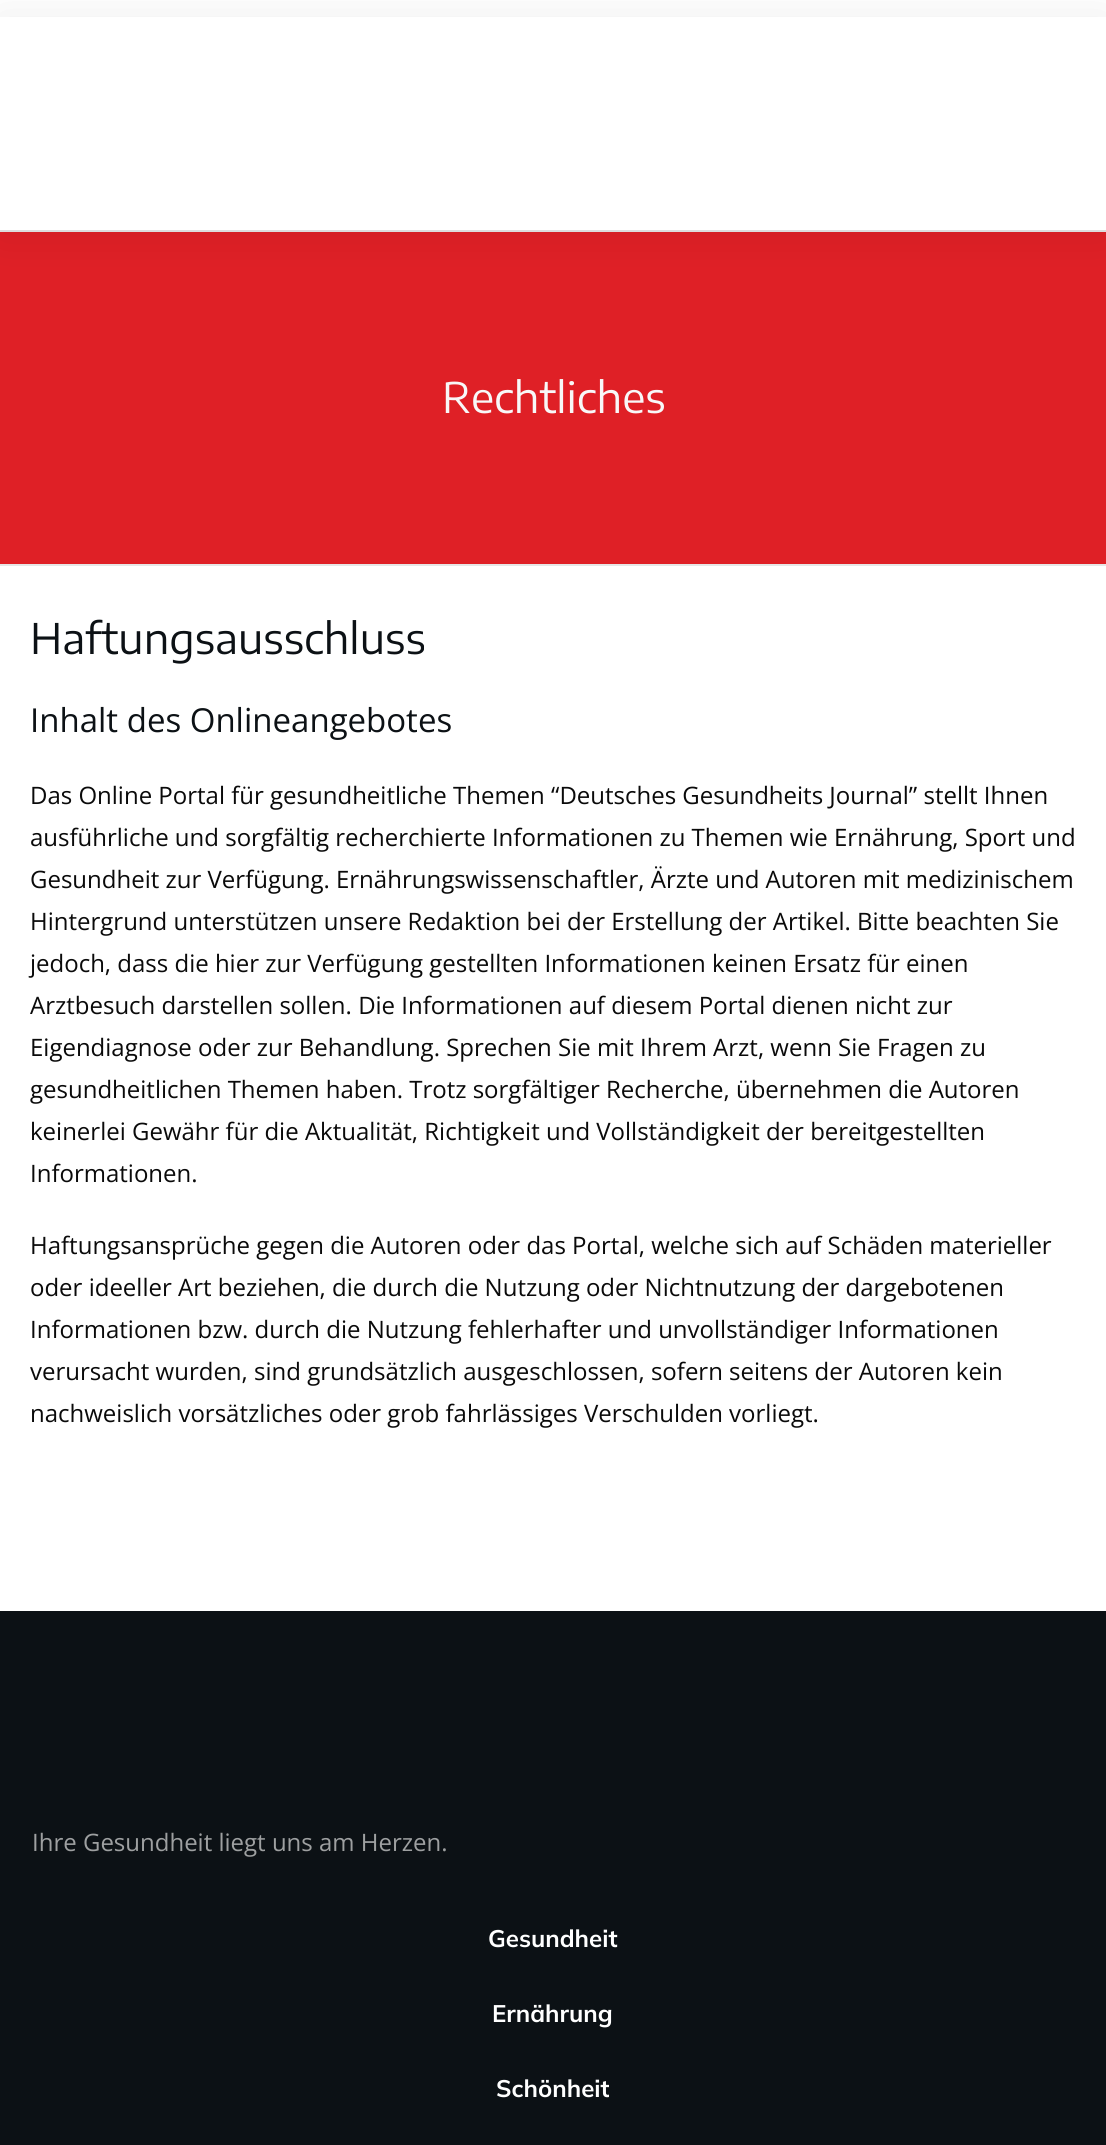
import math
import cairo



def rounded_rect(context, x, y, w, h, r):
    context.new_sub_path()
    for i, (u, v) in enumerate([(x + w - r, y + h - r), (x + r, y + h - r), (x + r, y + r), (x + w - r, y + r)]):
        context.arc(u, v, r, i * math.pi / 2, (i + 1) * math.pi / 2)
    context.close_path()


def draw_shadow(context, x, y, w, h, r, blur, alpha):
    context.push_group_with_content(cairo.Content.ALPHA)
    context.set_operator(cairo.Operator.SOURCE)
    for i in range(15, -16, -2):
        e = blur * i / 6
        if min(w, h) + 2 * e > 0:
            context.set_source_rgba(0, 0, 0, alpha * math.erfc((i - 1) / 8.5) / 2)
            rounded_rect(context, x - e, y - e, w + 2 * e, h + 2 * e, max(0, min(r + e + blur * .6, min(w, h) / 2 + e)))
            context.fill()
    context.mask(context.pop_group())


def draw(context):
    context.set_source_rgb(1, 1, 1)
    context.paint()
    context.set_source_rgb(223 / 255, 32 / 255, 38 / 255)
    context.rectangle(0, 232, 1106, 332)
    context.fill()
    context.set_source_rgb(230 / 255, 230 / 255, 230 / 255)
    context.rectangle(0, 230, 1106, 2)
    context.fill()
    context.set_source_rgb(0, 0, 0)
    draw_shadow(context, 0, 20, 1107, 213, 0, 22.5, 0.08)
    context.set_source_rgb(1, 1, 1)
    context.rectangle(0, 17, 1106, 213)
    context.fill()
    context.set_source_rgb(230 / 255, 230 / 255, 230 / 255)
    context.rectangle(0, 564, 1106, 2)
    context.fill()
    context.set_source_rgb(12 / 255, 17 / 255, 21 / 255)
    context.rectangle(0, 1611, 1106, 534)
    context.fill()
    context.select_font_face("Encode Sans Semi Expanded")
    context.set_font_size(42)
    context.set_source_rgb(248 / 255, 248 / 255, 248 / 255)
    context.move_to(442, 413)
    context.show_text("Rechtliches")
    context.set_source_rgb(12 / 255, 17 / 255, 21 / 255)
    context.move_to(30, 654)
    context.show_text("Haftungsausschluss")
    context.select_font_face("Open Sans")
    context.set_font_size(33)
    context.move_to(30, 732)
    context.show_text("Inhalt des Onlineangebotes")
    context.set_font_size(24)
    context.set_source_rgb(10 / 255, 10 / 255, 10 / 255)
    context.move_to(30, 804)
    context.show_text("Das Online Portal für gesundheitliche Themen “Deutsches Gesundheits Journal” stellt Ihnen")
    context.move_to(30, 846)
    context.show_text("ausführliche und sorgfältig recherchierte Informationen zu Themen wie Ernährung, Sport und")
    context.move_to(30, 888)
    context.show_text("Gesundheit zur Verfügung. Ernährungswissenschaftler, Ärzte und Autoren mit medizinischem")
    context.move_to(30, 930)
    context.show_text("Hintergrund unterstützen unsere Redaktion bei der Erstellung der Artikel. Bitte beachten Sie")
    context.move_to(30, 972)
    context.show_text("jedoch, dass die hier zur Verfügung gestellten Informationen keinen Ersatz für einen")
    context.move_to(30, 1014)
    context.show_text("Arztbesuch darstellen sollen. Die Informationen auf diesem Portal dienen nicht zur")
    context.move_to(30, 1056)
    context.show_text("Eigendiagnose oder zur Behandlung. Sprechen Sie mit Ihrem Arzt, wenn Sie Fragen zu")
    context.move_to(30, 1098)
    context.show_text("gesundheitlichen Themen haben. Trotz sorgfältiger Recherche, übernehmen die Autoren")
    context.move_to(30, 1140)
    context.show_text("keinerlei Gewähr für die Aktualität, Richtigkeit und Vollständigkeit der bereitgestellten")
    context.move_to(30, 1182)
    context.show_text("Informationen.")
    context.move_to(30, 1254)
    context.show_text("Haftungsansprüche gegen die Autoren oder das Portal, welche sich auf Schäden materieller")
    context.move_to(30, 1296)
    context.show_text("oder ideeller Art beziehen, die durch die Nutzung oder Nichtnutzung der dargebotenen")
    context.move_to(30, 1338)
    context.show_text("Informationen bzw. durch die Nutzung fehlerhafter und unvollständiger Informationen")
    context.move_to(30, 1380)
    context.show_text("verursacht wurden, sind grundsätzlich ausgeschlossen, sofern seitens der Autoren kein")
    context.move_to(30, 1422)
    context.show_text("nachweislich vorsätzliches oder grob fahrlässiges Verschulden vorliegt.")
    context.set_source_rgb(158 / 255, 160 / 255, 161 / 255)
    context.move_to(32, 1851)
    context.show_text("Ihre Gesundheit liegt uns am Herzen.")
    context.select_font_face("Mulish", cairo.FontSlant.NORMAL, cairo.FontWeight.BOLD)
    context.set_source_rgb(1, 1, 1)
    context.move_to(488, 1947)
    context.show_text("Gesundheit")
    context.move_to(492, 2022)
    context.show_text("Ernährung")
    context.save()
    context.rectangle(497, 2064, 112, 48)
    context.clip()
    context.move_to(496, 2097)
    context.show_text("Schönheit")
    context.restore()


surface = cairo.ImageSurface(cairo.Format.RGB24, 1106, 2145)
context = cairo.Context(surface)
options = cairo.FontOptions()
options.set_hint_metrics(cairo.HintMetrics.OFF)
options.set_hint_style(cairo.HintStyle.NONE)
context.set_font_options(options)
context.set_miter_limit(4)
draw(context)
surface.write_to_png("out.png")
